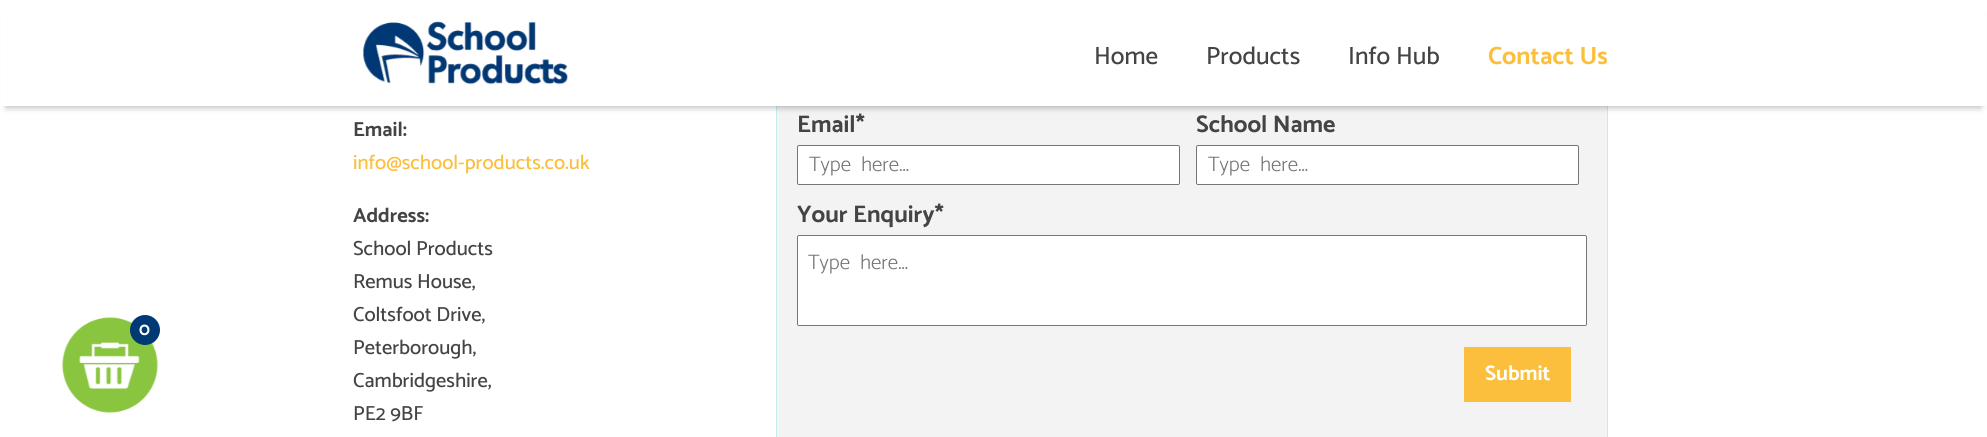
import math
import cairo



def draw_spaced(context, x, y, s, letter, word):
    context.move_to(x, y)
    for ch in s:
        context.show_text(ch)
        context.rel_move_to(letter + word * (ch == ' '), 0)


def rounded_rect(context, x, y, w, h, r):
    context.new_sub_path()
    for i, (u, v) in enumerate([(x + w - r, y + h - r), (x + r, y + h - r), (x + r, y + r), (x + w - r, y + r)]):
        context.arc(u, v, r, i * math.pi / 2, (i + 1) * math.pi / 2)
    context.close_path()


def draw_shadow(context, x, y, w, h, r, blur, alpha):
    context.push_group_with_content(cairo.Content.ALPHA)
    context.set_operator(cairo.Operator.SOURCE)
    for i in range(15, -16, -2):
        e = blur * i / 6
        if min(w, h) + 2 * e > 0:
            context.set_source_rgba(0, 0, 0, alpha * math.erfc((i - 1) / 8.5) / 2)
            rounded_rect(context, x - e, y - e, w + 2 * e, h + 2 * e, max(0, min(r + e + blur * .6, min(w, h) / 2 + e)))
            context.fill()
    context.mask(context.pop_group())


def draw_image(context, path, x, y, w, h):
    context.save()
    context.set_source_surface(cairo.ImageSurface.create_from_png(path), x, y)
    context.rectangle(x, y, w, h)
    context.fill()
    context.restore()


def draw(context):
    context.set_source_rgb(1, 1, 1)
    context.paint()
    context.set_source_rgb(243 / 255, 243 / 255, 243 / 255)
    context.rectangle(777, 106, 830, 331)
    context.fill()
    context.rectangle(776.5, -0.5, 831, 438)
    context.set_source_rgb(197 / 255, 233 / 255, 246 / 255)
    context.set_line_width(1)
    context.stroke()
    context.set_source_rgb(0, 0, 0)
    draw_shadow(context, 6, 14, 1975, 94, 0, 3, 0.25)
    context.set_source_rgb(1, 1, 1)
    context.rectangle(1, 0, 1985, 106)
    context.fill()
    draw_image(context, "images/1.png", 363, 21, 205, 64)
    draw_image(context, "images/2.png", 62, 317, 97, 96)
    context.set_source_rgb(0, 57 / 255, 116 / 255)
    context.arc(145, 330, 15, 0, 2 * math.pi)
    context.fill()
    context.set_source_rgb(1, 1, 1)
    rounded_rect(context, 797.5, 145.5, 382, 39, 1.5)
    context.fill_preserve()
    context.set_source_rgb(118 / 255, 118 / 255, 118 / 255)
    context.stroke()
    context.set_source_rgb(1, 1, 1)
    rounded_rect(context, 1196.5, 145.5, 382, 39, 1.5)
    context.fill_preserve()
    context.set_source_rgb(118 / 255, 118 / 255, 118 / 255)
    context.stroke()
    context.set_source_rgb(1, 1, 1)
    rounded_rect(context, 797.5, 235.5, 789, 90, 1.5)
    context.fill_preserve()
    context.set_source_rgb(118 / 255, 118 / 255, 118 / 255)
    context.stroke()
    context.set_source_rgb(251 / 255, 191 / 255, 61 / 255)
    context.rectangle(1464, 347, 107, 55)
    context.fill()
    context.select_font_face("Catamaran Medium")
    context.set_font_size(25)
    context.set_source_rgb(68 / 255, 68 / 255, 68 / 255)
    context.move_to(1094, 64)
    context.show_text("Home")
    context.move_to(1206, 64)
    context.show_text("Products")
    context.move_to(1348, 64)
    context.show_text("Info Hub")
    context.select_font_face("Catamaran", cairo.FontSlant.NORMAL, cairo.FontWeight.BOLD)
    context.set_source_rgb(251 / 255, 191 / 255, 61 / 255)
    context.move_to(1488, 64)
    context.show_text("Contact Us")
    context.set_font_size(18)
    context.set_source_rgb(1, 1, 1)
    context.move_to(139, 335)
    context.show_text("0")
    context.set_font_size(20.4)
    context.set_source_rgb(68 / 255, 68 / 255, 68 / 255)
    context.move_to(353, 136)
    context.show_text("Email:")
    context.select_font_face("Catamaran Medium")
    context.set_source_rgb(251 / 255, 191 / 255, 61 / 255)
    context.move_to(353, 169)
    context.show_text("info@school-products.co.uk")
    context.select_font_face("Catamaran", cairo.FontSlant.NORMAL, cairo.FontWeight.BOLD)
    context.set_source_rgb(68 / 255, 68 / 255, 68 / 255)
    context.move_to(353, 222)
    context.show_text("Address:")
    context.select_font_face("Catamaran Medium")
    context.move_to(353, 255)
    context.show_text("School Products")
    context.move_to(353, 288)
    context.show_text("Remus House,")
    context.move_to(353, 321)
    context.show_text("Coltsfoot Drive,")
    context.move_to(353, 354)
    context.show_text("Peterborough,")
    context.move_to(353, 387)
    context.show_text("Cambridgeshire,")
    context.move_to(353, 420)
    context.show_text("PE2 9BF")
    context.select_font_face("Catamaran", cairo.FontSlant.NORMAL, cairo.FontWeight.BOLD)
    context.set_font_size(24)
    context.move_to(797, 132)
    context.show_text("Email*")
    context.select_font_face("Catamaran Light")
    context.set_font_size(21)
    context.set_source_rgb(117 / 255, 117 / 255, 117 / 255)
    draw_spaced(context, 809, 171, "Type here...", 0, 5)
    context.select_font_face("Catamaran", cairo.FontSlant.NORMAL, cairo.FontWeight.BOLD)
    context.set_font_size(24)
    context.set_source_rgb(68 / 255, 68 / 255, 68 / 255)
    context.move_to(1196, 132)
    context.show_text("School Name")
    context.select_font_face("Catamaran Light")
    context.set_font_size(21)
    context.set_source_rgb(117 / 255, 117 / 255, 117 / 255)
    draw_spaced(context, 1208, 171, "Type here...", 0, 5)
    context.select_font_face("Catamaran", cairo.FontSlant.NORMAL, cairo.FontWeight.BOLD)
    context.set_font_size(24)
    context.set_source_rgb(68 / 255, 68 / 255, 68 / 255)
    context.move_to(797, 222)
    context.show_text("Your Enquiry*")
    context.select_font_face("Catamaran Light")
    context.set_font_size(21)
    context.set_source_rgb(117 / 255, 117 / 255, 117 / 255)
    draw_spaced(context, 808, 269, "Type here...", 0, 5)
    context.select_font_face("Catamaran", cairo.FontSlant.NORMAL, cairo.FontWeight.BOLD)
    context.set_source_rgb(1, 1, 1)
    context.move_to(1485, 380)
    context.show_text("Submit")


surface = cairo.ImageSurface(cairo.Format.RGB24, 1987, 437)
context = cairo.Context(surface)
options = cairo.FontOptions()
options.set_hint_metrics(cairo.HintMetrics.OFF)
options.set_hint_style(cairo.HintStyle.NONE)
context.set_font_options(options)
context.set_miter_limit(4)
draw(context)
surface.write_to_png("out.png")
